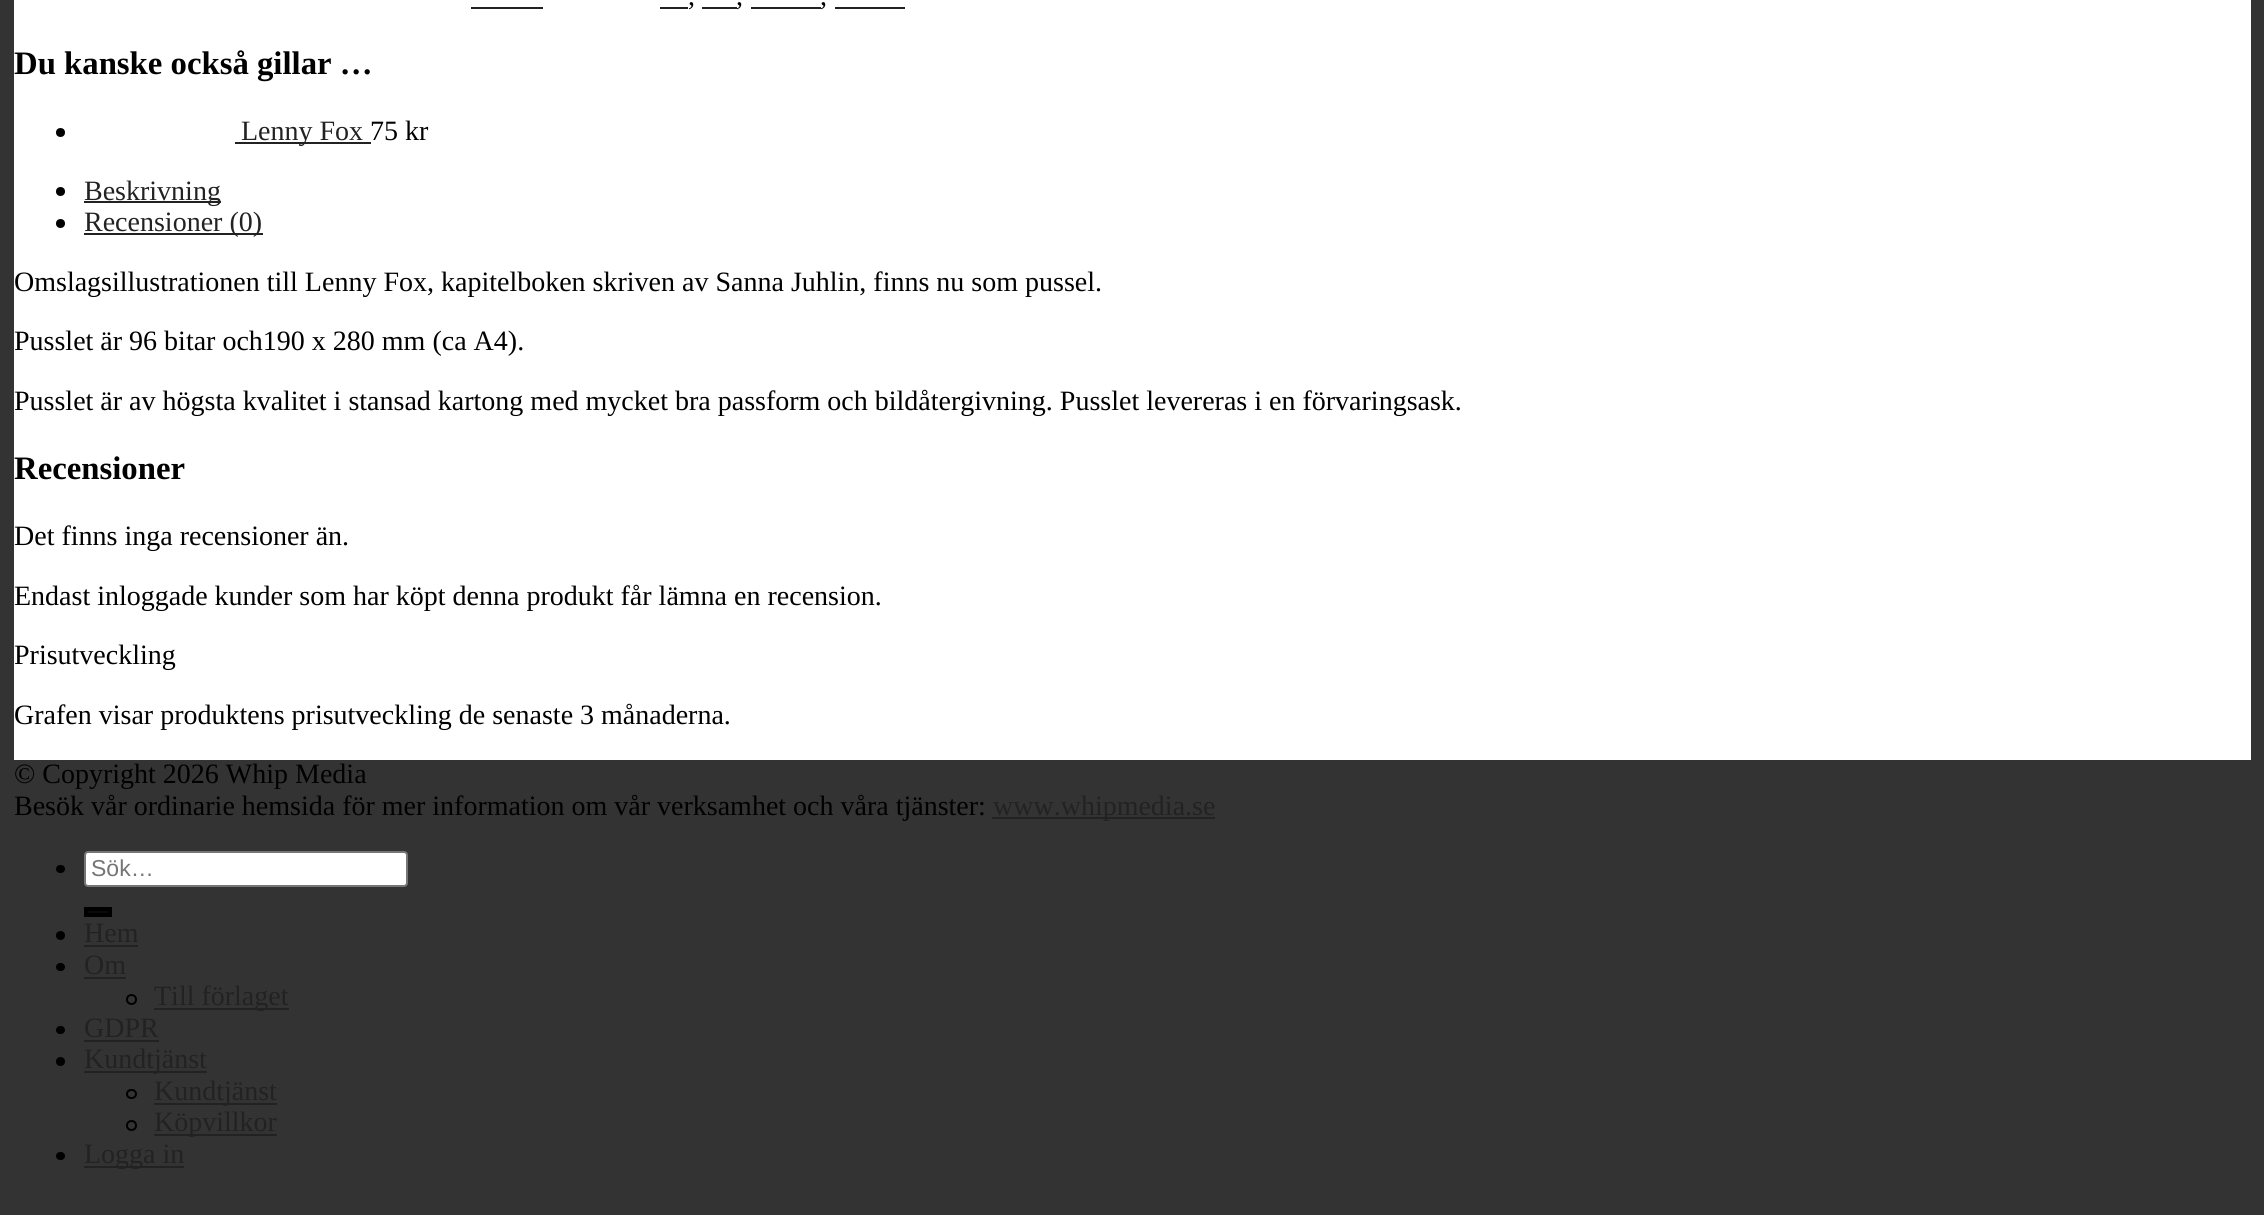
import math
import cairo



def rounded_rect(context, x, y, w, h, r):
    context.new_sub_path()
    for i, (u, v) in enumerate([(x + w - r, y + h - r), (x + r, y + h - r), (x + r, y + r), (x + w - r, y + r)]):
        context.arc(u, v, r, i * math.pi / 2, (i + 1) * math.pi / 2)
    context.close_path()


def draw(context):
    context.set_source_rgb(51 / 255, 51 / 255, 51 / 255)
    context.paint()
    context.set_source_rgb(1, 1, 1)
    context.rectangle(14, 0, 2237, 760)
    context.fill()
    context.set_source_rgb(34 / 255, 34 / 255, 34 / 255)
    context.rectangle(471, 7, 72, 2)
    context.fill()
    context.rectangle(660, 7, 28, 2)
    context.fill()
    context.rectangle(702, 7, 35, 2)
    context.fill()
    context.rectangle(751, 7, 70, 2)
    context.fill()
    context.rectangle(835, 7, 70, 2)
    context.fill()
    context.set_source_rgb(0, 0, 0)
    context.arc(60.5, 132.5, 4.5, 0, 2 * math.pi)
    context.fill()
    context.set_source_rgb(34 / 255, 34 / 255, 34 / 255)
    context.rectangle(235, 142, 136, 2)
    context.fill()
    context.set_source_rgb(0, 0, 0)
    context.arc(60.5, 191.5, 4.5, 0, 2 * math.pi)
    context.fill()
    context.set_source_rgb(34 / 255, 34 / 255, 34 / 255)
    context.rectangle(84, 201, 137, 2)
    context.fill()
    context.set_source_rgb(0, 0, 0)
    context.arc(60.5, 223.5, 4.5, 0, 2 * math.pi)
    context.fill()
    context.set_source_rgb(34 / 255, 34 / 255, 34 / 255)
    context.rectangle(84, 233, 179, 2)
    context.fill()
    context.rectangle(992, 817, 223, 2)
    context.fill()
    context.set_source_rgb(0, 0, 0)
    rounded_rect(context, 56, 865, 9, 8, 4)
    context.fill()
    context.set_source_rgb(1, 1, 1)
    rounded_rect(context, 85, 852, 322, 34, 3)
    context.fill_preserve()
    context.set_source_rgb(118 / 255, 118 / 255, 118 / 255)
    context.stroke()
    context.set_source_rgb(10 / 255, 10 / 255, 10 / 255)
    context.rectangle(86, 909, 24, 6)
    context.fill_preserve()
    context.set_source_rgb(0, 0, 0)
    context.set_line_width(4)
    context.stroke()
    context.arc(60.5, 935.5, 4.5, 0, 2 * math.pi)
    context.fill()
    context.set_source_rgb(34 / 255, 34 / 255, 34 / 255)
    context.rectangle(84, 945, 54, 2)
    context.fill()
    context.set_source_rgb(0, 0, 0)
    rounded_rect(context, 56, 963, 9, 8, 4)
    context.fill()
    context.set_source_rgb(34 / 255, 34 / 255, 34 / 255)
    context.rectangle(84, 977, 42, 2)
    context.fill()
    context.arc(131.5, 999.5, 4.5, 0, 2 * math.pi)
    context.set_source_rgb(0, 0, 0)
    context.set_line_width(2)
    context.stroke()
    context.set_source_rgb(34 / 255, 34 / 255, 34 / 255)
    context.rectangle(154, 1008, 135, 2)
    context.fill()
    context.set_source_rgb(0, 0, 0)
    rounded_rect(context, 56, 1026, 9, 8, 4)
    context.fill()
    context.set_source_rgb(34 / 255, 34 / 255, 34 / 255)
    context.rectangle(84, 1040, 75, 2)
    context.fill()
    context.set_source_rgb(0, 0, 0)
    context.arc(60.5, 1061.5, 4.5, 0, 2 * math.pi)
    context.fill()
    context.set_source_rgb(34 / 255, 34 / 255, 34 / 255)
    context.rectangle(84, 1071, 123, 2)
    context.fill()
    rounded_rect(context, 127, 1090, 9, 8, 4)
    context.set_source_rgb(0, 0, 0)
    context.stroke()
    context.set_source_rgb(34 / 255, 34 / 255, 34 / 255)
    context.rectangle(154, 1103, 123, 2)
    context.fill()
    context.arc(131.5, 1125.5, 4.5, 0, 2 * math.pi)
    context.set_source_rgb(0, 0, 0)
    context.stroke()
    context.set_source_rgb(34 / 255, 34 / 255, 34 / 255)
    context.rectangle(154, 1134, 123, 2)
    context.fill()
    context.set_source_rgb(0, 0, 0)
    rounded_rect(context, 56, 1152, 9, 8, 4)
    context.fill()
    context.set_source_rgb(34 / 255, 34 / 255, 34 / 255)
    context.rectangle(84, 1166, 100, 2)
    context.fill()
    context.select_font_face("Liberation Serif")
    context.set_font_size(28)
    context.set_source_rgb(0, 0, 0)
    context.move_to(688, 5)
    context.show_text(",")
    context.move_to(736, 5)
    context.show_text(",")
    context.move_to(820, 5)
    context.show_text(",")
    context.select_font_face("Liberation Serif", cairo.FontSlant.NORMAL, cairo.FontWeight.BOLD)
    context.set_font_size(32.75)
    context.move_to(14, 74)
    context.show_text("Du kanske också gillar …")
    context.select_font_face("Liberation Serif")
    context.set_font_size(28)
    context.set_source_rgb(34 / 255, 34 / 255, 34 / 255)
    context.move_to(241, 140)
    context.show_text("Lenny Fox")
    context.set_source_rgb(0, 0, 0)
    context.move_to(370, 140)
    context.show_text("75 kr")
    context.set_source_rgb(34 / 255, 34 / 255, 34 / 255)
    context.move_to(84, 200)
    context.show_text("Beskrivning")
    context.move_to(84, 231)
    context.show_text("Recensioner (0)")
    context.set_source_rgb(0, 0, 0)
    context.move_to(14, 291)
    context.show_text("Omslagsillustrationen till Lenny Fox, kapitelboken skriven av Sanna Juhlin, finns nu som pussel.")
    context.move_to(14, 350)
    context.show_text("Pusslet är 96 bitar och190 x 280 mm (ca A4).")
    context.move_to(14, 410)
    context.show_text("Pusslet är av högsta kvalitet i stansad kartong med mycket bra passform och bildåtergivning. Pusslet levereras i en förvaringsask.")
    context.select_font_face("Liberation Serif", cairo.FontSlant.NORMAL, cairo.FontWeight.BOLD)
    context.set_font_size(32.75)
    context.move_to(14, 479)
    context.show_text("Recensioner")
    context.select_font_face("Liberation Serif")
    context.set_font_size(28)
    context.move_to(14, 545)
    context.show_text("Det finns inga recensioner än.")
    context.move_to(14, 605)
    context.show_text("Endast inloggade kunder som har köpt denna produkt får lämna en recension.")
    context.move_to(14, 664)
    context.show_text("Prisutveckling")
    context.move_to(14, 724)
    context.show_text("Grafen visar produktens prisutveckling de senaste 3 månaderna.")
    context.move_to(14, 783)
    context.show_text("© Copyright 2026 Whip Media")
    context.move_to(14, 815)
    context.show_text("Besök vår ordinarie hemsida för mer information om vår verksamhet och våra tjänster:")
    context.set_source_rgb(34 / 255, 34 / 255, 34 / 255)
    context.move_to(993, 815)
    context.show_text("www.whipmedia.se")
    context.select_font_face("Liberation Sans")
    context.set_font_size(23)
    context.set_source_rgb(117 / 255, 117 / 255, 117 / 255)
    context.move_to(91, 876)
    context.show_text("Sök…")
    context.select_font_face("Liberation Serif")
    context.set_font_size(28)
    context.set_source_rgb(34 / 255, 34 / 255, 34 / 255)
    context.move_to(84, 942)
    context.show_text("Hem")
    context.move_to(84, 974)
    context.show_text("Om")
    context.move_to(154, 1005)
    context.show_text("Till förlaget")
    context.move_to(84, 1037)
    context.show_text("GDPR")
    context.move_to(84, 1068)
    context.show_text("Kundtjänst")
    context.move_to(154, 1100)
    context.show_text("Kundtjänst")
    context.move_to(154, 1131)
    context.show_text("Köpvillkor")
    context.move_to(84, 1163)
    context.show_text("Logga in")


surface = cairo.ImageSurface(cairo.Format.RGB24, 2264, 1215)
context = cairo.Context(surface)
options = cairo.FontOptions()
options.set_hint_metrics(cairo.HintMetrics.OFF)
options.set_hint_style(cairo.HintStyle.NONE)
context.set_font_options(options)
context.set_miter_limit(4)
draw(context)
surface.write_to_png("out.png")
